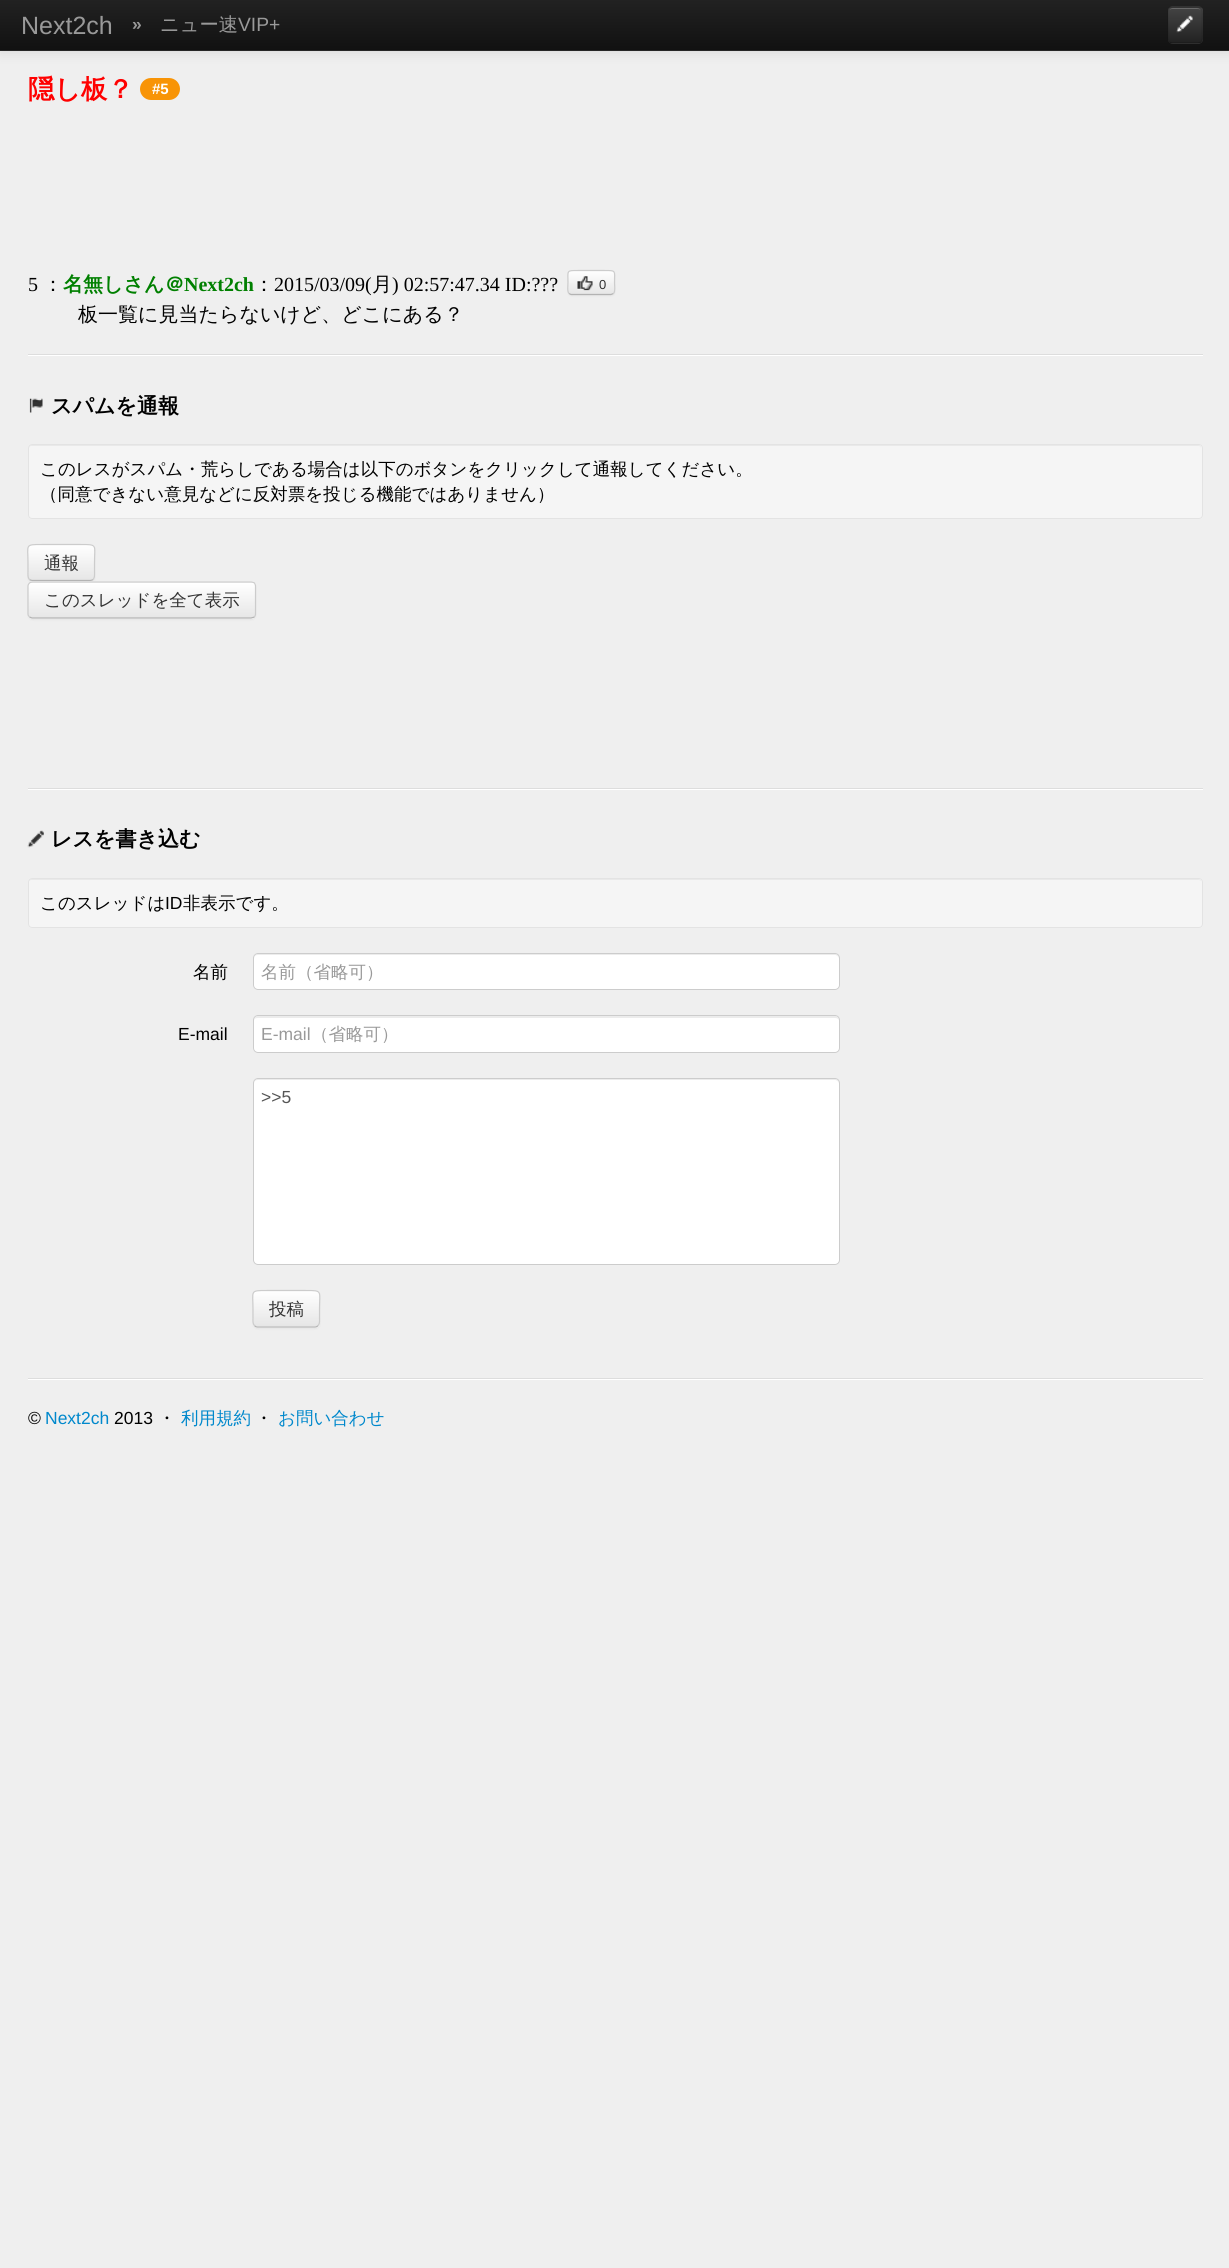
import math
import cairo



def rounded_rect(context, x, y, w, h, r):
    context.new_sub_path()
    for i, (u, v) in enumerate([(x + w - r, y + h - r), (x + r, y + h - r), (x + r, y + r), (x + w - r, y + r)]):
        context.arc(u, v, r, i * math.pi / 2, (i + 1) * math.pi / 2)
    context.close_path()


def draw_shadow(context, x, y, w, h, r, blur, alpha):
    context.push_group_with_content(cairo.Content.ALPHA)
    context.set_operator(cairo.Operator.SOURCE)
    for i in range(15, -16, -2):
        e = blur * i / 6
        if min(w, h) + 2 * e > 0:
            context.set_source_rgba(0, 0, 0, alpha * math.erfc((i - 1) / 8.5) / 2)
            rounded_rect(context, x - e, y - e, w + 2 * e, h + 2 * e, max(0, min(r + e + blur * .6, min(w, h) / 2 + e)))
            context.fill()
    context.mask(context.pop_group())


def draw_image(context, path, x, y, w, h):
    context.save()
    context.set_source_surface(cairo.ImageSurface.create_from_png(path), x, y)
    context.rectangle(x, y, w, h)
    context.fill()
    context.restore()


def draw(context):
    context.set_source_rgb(239 / 255, 239 / 255, 239 / 255)
    context.paint()
    context.set_source_rgb(0, 0, 0)
    draw_shadow(context, 0, 1, 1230, 52, 0, 6, 0.1)
    gradient = cairo.LinearGradient(615, 0, 615, 50)
    gradient.add_color_stop_rgba(0, 34 / 255, 34 / 255, 34 / 255, 1)
    gradient.add_color_stop_rgba(1, 17 / 255, 17 / 255, 17 / 255, 1)
    context.set_source(gradient)
    context.rectangle(0, 0, 1229, 50)
    context.fill()
    context.set_source_rgb(37 / 255, 37 / 255, 37 / 255)
    context.rectangle(0, 50, 1229, 1)
    context.fill()
    context.set_source_rgb(54 / 255, 54 / 255, 54 / 255)
    rounded_rect(context, 1168, 6, 35, 38, 5)
    context.fill()
    context.save()
    rounded_rect(context, 1168, 6, 35, 38, 5)
    context.clip()
    gradient = cairo.LinearGradient(1185, 7.5, 1185, 43)
    gradient.add_color_stop_rgba(0, 68 / 255, 68 / 255, 68 / 255, 1)
    gradient.add_color_stop_rgba(1, 34 / 255, 34 / 255, 34 / 255, 1)
    context.set_source(gradient)
    context.rectangle(1168, 8, 35, 35)
    context.fill()
    context.restore()
    context.set_source_rgb(105 / 255, 105 / 255, 105 / 255)
    context.new_path()
    context.move_to(1172, 9)
    context.line_to(1198, 9)
    context.curve_to(1199, 9, 1200, 9.5, 1200.5, 10)
    context.curve_to(1200, 9, 1198.5, 8, 1197, 8)
    context.line_to(1173, 8)
    context.curve_to(1171.5, 8, 1170, 9, 1169.5, 10)
    context.curve_to(1170, 9.5, 1171, 9, 1172, 9)
    context.close_path()
    context.fill()
    context.new_path()
    context.move_to(1200.5, 42)
    context.curve_to(1200, 42.5, 1198.5, 43, 1197.5, 43)
    context.line_to(1172.5, 43)
    context.curve_to(1171.5, 43, 1170, 42.5, 1169.5, 42)
    context.set_source_rgba(0, 0, 0, 0.25)
    context.set_line_width(1.2)
    context.stroke()
    context.new_path()
    context.move_to(1169.5, 42)
    context.curve_to(1167.5, 40, 1168, 36.5, 1168, 34)
    context.line_to(1168, 25)
    context.curve_to(1168, 5, 1165, 7, 1185, 7)
    context.curve_to(1205, 7, 1202, 5, 1202, 25)
    context.line_to(1202, 34)
    context.curve_to(1202, 36.5, 1202.5, 40, 1200.5, 42)
    context.set_source_rgba(0, 0, 0, 0.1)
    context.stroke()
    draw_image(context, "images/1.png", 1176, 15, 17, 18)
    context.set_source_rgb(248 / 255, 148 / 255, 6 / 255)
    rounded_rect(context, 140, 78, 40, 22, 11)
    context.fill()
    context.set_source_rgb(0, 0, 0)
    draw_shadow(context, 568, 271, 47, 25, 4, 1, 0.05)
    context.save()
    rounded_rect(context, 568, 270, 47, 25, 4)
    context.clip()
    gradient = cairo.LinearGradient(591, 271, 591, 294)
    gradient.add_color_stop_rgba(0, 1, 1, 1, 1)
    gradient.add_color_stop_rgba(1, 230 / 255, 230 / 255, 230 / 255, 1)
    context.set_source(gradient)
    context.rectangle(568, 271, 47, 23)
    context.fill()
    context.restore()
    context.set_source_rgb(254 / 255, 254 / 255, 254 / 255)
    context.new_path()
    context.move_to(571, 272)
    context.line_to(611, 272)
    context.curve_to(613, 272, 614, 274, 614, 275)
    context.curve_to(614, 269, 610, 271, 605, 271)
    context.line_to(578, 271)
    context.curve_to(573, 271, 569, 269, 569, 275)
    context.curve_to(569, 274, 570, 272, 571, 272)
    context.close_path()
    context.fill()
    context.new_path()
    context.move_to(613.5, 293.5)
    context.line_to(611, 294.5)
    context.line_to(571, 294.5)
    context.line_to(569, 293.5)
    context.set_source_rgb(179 / 255, 179 / 255, 179 / 255)
    context.stroke()
    context.new_path()
    context.move_to(569, 293.5)
    context.curve_to(567, 291.5, 568, 285, 568, 282.5)
    context.curve_to(568, 270.5, 566, 270.5, 578, 270.5)
    context.line_to(604.5, 270.5)
    context.curve_to(616.5, 270.5, 614.5, 270.5, 614.5, 282.5)
    context.curve_to(614.5, 285, 615.5, 291.5, 613.5, 293.5)
    context.set_source_rgb(204 / 255, 204 / 255, 204 / 255)
    context.stroke()
    draw_image(context, "images/2.png", 577, 276, 16, 15)
    context.set_source_rgb(221 / 255, 221 / 255, 221 / 255)
    context.rectangle(28, 354, 1175, 1)
    context.fill()
    context.set_source_rgb(1, 1, 1)
    context.rectangle(28, 355, 1175, 1)
    context.fill()
    draw_image(context, "images/3.png", 29, 398, 14, 15)
    context.set_source_rgb(245 / 255, 245 / 255, 245 / 255)
    rounded_rect(context, 28, 444, 1175, 75, 4)
    context.fill()
    context.set_source_rgb(233 / 255, 233 / 255, 233 / 255)
    context.new_path()
    context.move_to(31, 446)
    context.line_to(1199, 446)
    context.curve_to(1200, 446, 1201, 447, 1201, 449)
    context.curve_to(1201, 447, 1201, 445, 1198, 445)
    context.line_to(32, 445)
    context.curve_to(29, 445, 29, 447, 29, 449)
    context.curve_to(29, 447, 30, 446, 31, 446)
    context.close_path()
    context.fill()
    rounded_rect(context, 28.5, 444.5, 1174, 74, 3.5)
    context.set_source_rgb(227 / 255, 227 / 255, 227 / 255)
    context.set_line_width(1)
    context.stroke()
    context.set_source_rgb(0, 0, 0)
    draw_shadow(context, 28, 545, 67, 38, 5, 1, 0.05)
    context.set_source_rgb(245 / 255, 245 / 255, 245 / 255)
    rounded_rect(context, 28, 544, 67, 37, 5)
    context.fill()
    context.save()
    rounded_rect(context, 28, 544, 67, 37, 5)
    context.clip()
    gradient = cairo.LinearGradient(61, 545, 61, 580)
    gradient.add_color_stop_rgba(0, 1, 1, 1, 1)
    gradient.add_color_stop_rgba(1, 230 / 255, 230 / 255, 230 / 255, 1)
    context.set_source(gradient)
    context.rectangle(28, 545, 67, 35)
    context.fill()
    context.restore()
    context.set_source_rgb(1, 1, 1)
    context.new_path()
    context.move_to(32, 546)
    context.line_to(90, 546)
    context.curve_to(92, 546, 94, 548, 94, 550)
    context.curve_to(94, 543, 86, 545, 80, 545)
    context.line_to(42, 545)
    context.curve_to(37, 545, 29, 543, 29, 550)
    context.curve_to(29, 548, 30, 546, 32, 546)
    context.close_path()
    context.fill()
    context.new_path()
    context.move_to(93, 579.5)
    context.curve_to(92.5, 580, 91, 580.5, 90, 580.5)
    context.line_to(32.5, 580.5)
    context.curve_to(31.5, 580.5, 30, 580, 29.5, 579.5)
    context.set_source_rgb(179 / 255, 179 / 255, 179 / 255)
    context.set_line_width(1.2)
    context.stroke()
    context.new_path()
    context.move_to(29.5, 579.5)
    context.curve_to(27.5, 577.5, 28, 574, 28, 571.5)
    context.line_to(28, 562.5)
    context.curve_to(28, 544.5, 24.5, 544.5, 42, 544.5)
    context.line_to(80.5, 544.5)
    context.curve_to(98, 544.5, 94.5, 544.5, 94.5, 562.5)
    context.line_to(94.5, 571.5)
    context.curve_to(94.5, 574, 95, 577.5, 93, 579.5)
    context.set_source_rgb(204 / 255, 204 / 255, 204 / 255)
    context.stroke()
    context.set_source_rgb(0, 0, 0)
    draw_shadow(context, 28, 583, 228, 37, 5, 1, 0.05)
    context.set_source_rgb(245 / 255, 245 / 255, 245 / 255)
    rounded_rect(context, 28, 581, 228, 38, 5)
    context.fill()
    context.save()
    rounded_rect(context, 28, 581, 228, 38, 5)
    context.clip()
    gradient = cairo.LinearGradient(142, 583, 142, 618)
    gradient.add_color_stop_rgba(0, 1, 1, 1, 1)
    gradient.add_color_stop_rgba(1, 230 / 255, 230 / 255, 230 / 255, 1)
    context.set_source(gradient)
    context.rectangle(28, 583, 228, 35)
    context.fill()
    context.restore()
    context.new_path()
    context.move_to(254.5, 617)
    context.line_to(251, 618)
    context.line_to(32, 618)
    context.line_to(29.5, 617)
    context.set_source_rgb(179 / 255, 179 / 255, 179 / 255)
    context.stroke()
    context.new_path()
    context.move_to(29.5, 617)
    context.curve_to(28.5, 616, 28, 615, 28, 614)
    context.line_to(28, 586)
    context.curve_to(28, 585, 28.5, 584, 29.5, 583)
    context.curve_to(30, 582.5, 31.5, 582, 32.5, 582)
    context.line_to(251, 582)
    context.curve_to(252.5, 582, 253.5, 582.5, 254.5, 583)
    context.curve_to(255, 584, 255.5, 585, 255.5, 586)
    context.line_to(255.5, 614)
    context.curve_to(255.5, 615, 255, 616, 254.5, 617)
    context.set_source_rgb(204 / 255, 204 / 255, 204 / 255)
    context.stroke()
    context.set_source_rgb(221 / 255, 221 / 255, 221 / 255)
    context.rectangle(28, 788, 1175, 1)
    context.fill()
    context.set_source_rgb(1, 1, 1)
    context.rectangle(28, 789, 1175, 1)
    context.fill()
    draw_image(context, "images/4.png", 27, 830, 17, 18)
    context.set_source_rgb(245 / 255, 245 / 255, 245 / 255)
    rounded_rect(context, 28, 878, 1175, 50, 4)
    context.fill()
    context.set_source_rgb(233 / 255, 233 / 255, 233 / 255)
    context.new_path()
    context.move_to(31, 880)
    context.line_to(1199, 880)
    context.curve_to(1200, 880, 1201, 881, 1201, 882)
    context.curve_to(1201, 880, 1200, 879, 1198, 879)
    context.line_to(32, 879)
    context.curve_to(30, 879, 29, 880, 29, 882)
    context.curve_to(29, 881, 30, 880, 31, 880)
    context.close_path()
    context.fill()
    rounded_rect(context, 28.5, 878.5, 1174, 49, 3.5)
    context.set_source_rgb(227 / 255, 227 / 255, 227 / 255)
    context.set_line_width(1)
    context.stroke()
    context.set_source_rgb(1, 1, 1)
    rounded_rect(context, 253, 953, 587, 37, 5)
    context.fill()
    context.set_source_rgb(236 / 255, 236 / 255, 236 / 255)
    context.new_path()
    context.move_to(258, 955)
    context.line_to(835, 955)
    context.curve_to(837, 955, 839, 957, 839, 959)
    context.line_to(839, 958)
    context.curve_to(839, 956, 837, 954, 835, 954)
    context.line_to(258, 954)
    context.curve_to(256, 954, 254, 956, 254, 958)
    context.line_to(254, 959)
    context.curve_to(254, 957, 255, 955, 258, 955)
    context.close_path()
    context.fill()
    rounded_rect(context, 253.5, 953.5, 586, 36, 4.5)
    context.set_source_rgb(204 / 255, 204 / 255, 204 / 255)
    context.stroke()
    context.set_source_rgb(1, 1, 1)
    rounded_rect(context, 253, 1015, 587, 38, 5)
    context.fill()
    context.set_source_rgb(236 / 255, 236 / 255, 236 / 255)
    context.new_path()
    context.move_to(258, 1018)
    context.line_to(835, 1018)
    context.curve_to(837, 1018, 839, 1019, 839, 1021)
    context.line_to(839, 1020)
    context.curve_to(839, 1018, 837, 1016, 835, 1016)
    context.line_to(258, 1016)
    context.curve_to(256, 1016, 254, 1018, 254, 1020)
    context.line_to(254, 1021)
    context.curve_to(254, 1019, 255, 1018, 258, 1018)
    context.close_path()
    context.fill()
    rounded_rect(context, 253.5, 1015.5, 586, 37, 4.5)
    context.set_source_rgb(204 / 255, 204 / 255, 204 / 255)
    context.stroke()
    context.set_source_rgb(1, 1, 1)
    rounded_rect(context, 253, 1078, 587, 187, 5)
    context.fill()
    context.set_source_rgb(236 / 255, 236 / 255, 236 / 255)
    context.new_path()
    context.move_to(258, 1080)
    context.line_to(835, 1080)
    context.curve_to(837, 1080, 839, 1082, 839, 1084)
    context.line_to(839, 1083)
    context.curve_to(839, 1081, 837, 1079, 835, 1079)
    context.line_to(258, 1079)
    context.curve_to(256, 1079, 254, 1081, 254, 1083)
    context.line_to(254, 1084)
    context.curve_to(254, 1082, 255, 1080, 258, 1080)
    context.close_path()
    context.fill()
    rounded_rect(context, 253.5, 1078.5, 586, 186, 4.5)
    context.set_source_rgb(204 / 255, 204 / 255, 204 / 255)
    context.stroke()
    context.set_source_rgb(0, 0, 0)
    draw_shadow(context, 253, 1291, 67, 38, 5, 1, 0.05)
    context.set_source_rgb(245 / 255, 245 / 255, 245 / 255)
    rounded_rect(context, 253, 1290, 67, 38, 5)
    context.fill()
    context.save()
    rounded_rect(context, 253, 1290, 67, 38, 5)
    context.clip()
    gradient = cairo.LinearGradient(286, 1291, 286, 1326)
    gradient.add_color_stop_rgba(0, 1, 1, 1, 1)
    gradient.add_color_stop_rgba(1, 230 / 255, 230 / 255, 230 / 255, 1)
    context.set_source(gradient)
    context.rectangle(253, 1291, 67, 35)
    context.fill()
    context.restore()
    context.set_source_rgb(1, 1, 1)
    context.new_path()
    context.move_to(258, 1292)
    context.line_to(315, 1292)
    context.curve_to(317, 1292, 319, 1294, 319, 1296)
    context.curve_to(319, 1289, 311, 1291, 306, 1291)
    context.line_to(268, 1291)
    context.curve_to(262, 1291, 254, 1289, 254, 1296)
    context.curve_to(254, 1294, 255, 1292, 258, 1292)
    context.close_path()
    context.fill()
    context.new_path()
    context.move_to(318, 1325.5)
    context.curve_to(317.5, 1326.5, 316, 1327, 315, 1327)
    context.line_to(257.5, 1327)
    context.curve_to(256.5, 1327, 255, 1326.5, 254.5, 1325.5)
    context.set_source_rgb(179 / 255, 179 / 255, 179 / 255)
    context.set_line_width(1.2)
    context.stroke()
    context.new_path()
    context.move_to(254.5, 1325.5)
    context.curve_to(252.5, 1323.5, 253, 1320.5, 253, 1318)
    context.line_to(253, 1309)
    context.curve_to(253, 1290.5, 249.5, 1290.5, 267, 1290.5)
    context.line_to(305.5, 1290.5)
    context.curve_to(323, 1290.5, 319.5, 1290.5, 319.5, 1309)
    context.line_to(319.5, 1318)
    context.curve_to(319.5, 1320.5, 320, 1323.5, 318, 1325.5)
    context.set_source_rgb(204 / 255, 204 / 255, 204 / 255)
    context.stroke()
    context.set_source_rgb(221 / 255, 221 / 255, 221 / 255)
    context.rectangle(28, 1378, 1175, 1)
    context.fill()
    context.set_source_rgb(1, 1, 1)
    context.rectangle(28, 1379, 1175, 1)
    context.fill()
    context.select_font_face("Liberation Sans")
    context.set_font_size(25)
    context.set_source_rgb(153 / 255, 153 / 255, 153 / 255)
    context.move_to(21, 34)
    context.show_text("Next2ch")
    context.select_font_face("Liberation Sans", cairo.FontSlant.NORMAL, cairo.FontWeight.BOLD)
    context.set_font_size(17.5)
    context.move_to(132, 30)
    context.show_text("»")
    context.select_font_face("WenQuanYi Zen Hei Medium")
    context.set_font_size(19.25)
    context.move_to(160, 31)
    context.show_text("ニュー速")
    context.select_font_face("Liberation Sans")
    context.move_to(238, 31)
    context.show_text("VIP+")
    context.select_font_face("WenQuanYi Zen Hei", cairo.FontSlant.NORMAL, cairo.FontWeight.BOLD)
    context.set_font_size(26.25)
    context.set_source_rgb(1, 0, 0)
    context.move_to(28, 98)
    context.show_text("隠し板？")
    context.select_font_face("Liberation Sans", cairo.FontSlant.NORMAL, cairo.FontWeight.BOLD)
    context.set_font_size(15)
    context.set_source_rgb(1, 1, 1)
    context.move_to(152, 94)
    context.show_text("#5")
    context.select_font_face("Liberation Serif")
    context.set_font_size(20)
    context.set_source_rgb(0, 0, 0)
    context.move_to(28, 291)
    context.show_text("5")
    context.select_font_face("WenQuanYi Zen Hei Medium")
    context.move_to(43, 291)
    context.show_text("：")
    context.select_font_face("WenQuanYi Zen Hei", cairo.FontSlant.NORMAL, cairo.FontWeight.BOLD)
    context.set_source_rgb(0, 128 / 255, 0)
    context.move_to(63, 291)
    context.show_text("名無しさん＠")
    context.select_font_face("Liberation Serif", cairo.FontSlant.NORMAL, cairo.FontWeight.BOLD)
    context.move_to(184, 291)
    context.show_text("Next2ch")
    context.select_font_face("WenQuanYi Zen Hei Medium")
    context.set_source_rgb(0, 0, 0)
    context.move_to(254, 291)
    context.show_text("：")
    context.select_font_face("Liberation Serif")
    context.move_to(274, 291)
    context.show_text("2015/03/09(")
    context.select_font_face("WenQuanYi Zen Hei Medium")
    context.move_to(372, 291)
    context.show_text("月")
    context.select_font_face("Liberation Serif")
    context.move_to(392, 291)
    context.show_text(") 02:57:47.34 ID:???")
    context.select_font_face("Liberation Sans")
    context.set_font_size(13)
    context.set_source_rgb(51 / 255, 51 / 255, 51 / 255)
    context.move_to(599, 289)
    context.show_text("0")
    context.select_font_face("WenQuanYi Zen Hei Medium")
    context.set_font_size(20)
    context.set_source_rgb(0, 0, 0)
    context.move_to(78, 321)
    context.show_text("板一覧に見当たらないけど、どこにある？")
    context.select_font_face("WenQuanYi Zen Hei", cairo.FontSlant.NORMAL, cairo.FontWeight.BOLD)
    context.set_font_size(21)
    context.move_to(51, 413)
    context.show_text("スパムを通報")
    context.select_font_face("WenQuanYi Zen Hei Medium")
    context.set_font_size(17.5)
    context.move_to(40, 475)
    context.show_text("このレスがスパム・荒らしである場合は以下のボタンをクリックして通報してください。")
    context.move_to(40, 500)
    context.show_text("（同意できない意見などに反対票を投じる機能ではありません）")
    context.set_source_rgb(51 / 255, 51 / 255, 51 / 255)
    context.move_to(44, 569)
    context.show_text("通報")
    context.move_to(44, 606)
    context.show_text("このスレッドを全て表示")
    context.select_font_face("WenQuanYi Zen Hei", cairo.FontSlant.NORMAL, cairo.FontWeight.BOLD)
    context.set_font_size(21)
    context.set_source_rgb(0, 0, 0)
    context.move_to(51, 846)
    context.show_text("レスを書き込む")
    context.select_font_face("WenQuanYi Zen Hei Medium")
    context.set_font_size(17.5)
    context.move_to(40, 909)
    context.show_text("このスレッドは")
    context.select_font_face("Liberation Sans")
    context.move_to(165, 909)
    context.show_text("ID")
    context.select_font_face("WenQuanYi Zen Hei Medium")
    context.move_to(183, 909)
    context.show_text("非表示です。")
    context.move_to(193, 978)
    context.show_text("名前")
    context.set_source_rgb(153 / 255, 153 / 255, 153 / 255)
    context.move_to(261, 978)
    context.show_text("名前（省略可）")
    context.select_font_face("Liberation Sans")
    context.set_source_rgb(0, 0, 0)
    context.move_to(178, 1040)
    context.show_text("E-mail")
    context.set_source_rgb(153 / 255, 153 / 255, 153 / 255)
    context.move_to(261, 1040)
    context.show_text("E-mail")
    context.select_font_face("WenQuanYi Zen Hei Medium")
    context.move_to(311, 1040)
    context.show_text("（省略可）")
    context.select_font_face("Liberation Sans")
    context.set_source_rgb(85 / 255, 85 / 255, 85 / 255)
    context.move_to(261, 1103)
    context.show_text(">>5")
    context.select_font_face("WenQuanYi Zen Hei Medium")
    context.set_source_rgb(51 / 255, 51 / 255, 51 / 255)
    context.move_to(269, 1315)
    context.show_text("投稿")
    context.select_font_face("Liberation Sans")
    context.set_source_rgb(0, 0, 0)
    context.move_to(28, 1424)
    context.show_text("©")
    context.set_source_rgb(0, 136 / 255, 204 / 255)
    context.move_to(45, 1424)
    context.show_text("Next2ch")
    context.set_source_rgb(0, 0, 0)
    context.move_to(114, 1424)
    context.show_text("2013")
    context.select_font_face("WenQuanYi Zen Hei Medium")
    context.move_to(158, 1424)
    context.show_text("・")
    context.set_source_rgb(0, 136 / 255, 204 / 255)
    context.move_to(181, 1424)
    context.show_text("利用規約")
    context.set_source_rgb(0, 0, 0)
    context.move_to(255, 1424)
    context.show_text("・")
    context.set_source_rgb(0, 136 / 255, 204 / 255)
    context.move_to(278, 1424)
    context.show_text("お問い合わせ")


surface = cairo.ImageSurface(cairo.Format.RGB24, 1229, 2268)
context = cairo.Context(surface)
options = cairo.FontOptions()
options.set_hint_metrics(cairo.HintMetrics.OFF)
options.set_hint_style(cairo.HintStyle.NONE)
context.set_font_options(options)
context.set_miter_limit(4)
draw(context)
surface.write_to_png("out.png")
